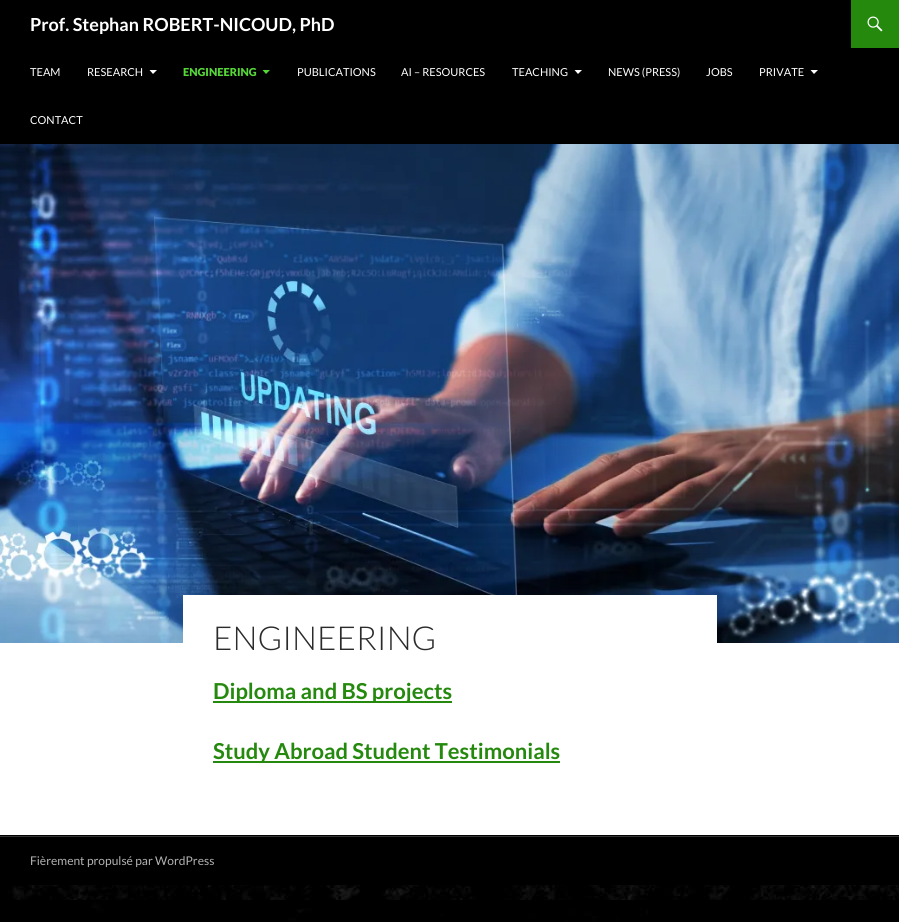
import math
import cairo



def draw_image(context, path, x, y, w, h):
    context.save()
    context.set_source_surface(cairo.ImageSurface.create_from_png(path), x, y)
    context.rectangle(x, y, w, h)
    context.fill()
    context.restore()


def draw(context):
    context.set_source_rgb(1, 1, 1)
    context.paint()
    draw_image(context, "images/1.png", 0, 885, 899, 37)
    context.set_source_rgb(0, 0, 0)
    context.rectangle(0, 0, 899, 144)
    context.fill()
    context.set_source_rgb(36 / 255, 137 / 255, 13 / 255)
    context.rectangle(851, 0, 48, 48)
    context.fill()
    draw_image(context, "images/2.png", 867, 16, 16, 16)
    context.set_source_rgb(1, 1, 1)
    context.new_path()
    context.move_to(149.5, 70)
    context.line_to(157, 70)
    context.line_to(153, 74)
    context.close_path()
    context.fill()
    context.set_source_rgb(85 / 255, 215 / 255, 55 / 255)
    context.new_path()
    context.move_to(262.5, 70)
    context.line_to(270, 70)
    context.line_to(266, 74)
    context.close_path()
    context.fill()
    context.set_source_rgb(1, 1, 1)
    context.new_path()
    context.move_to(574.5, 70)
    context.line_to(582, 70)
    context.line_to(578, 74)
    context.close_path()
    context.fill()
    context.new_path()
    context.move_to(810.5, 70)
    context.line_to(818, 70)
    context.line_to(814, 74)
    context.close_path()
    context.fill()
    draw_image(context, "images/3.png", 0, 144, 899, 499)
    context.rectangle(183, 595, 534, 48)
    context.fill()
    context.set_source_rgb(36 / 255, 137 / 255, 13 / 255)
    context.rectangle(213, 701, 239, 2)
    context.fill()
    context.rectangle(213, 761, 347, 2)
    context.fill()
    context.set_source_rgb(0, 0, 0)
    context.rectangle(0, 835, 899, 1)
    context.fill()
    context.set_source_rgb(51 / 255, 51 / 255, 51 / 255)
    context.rectangle(0, 836, 899, 1)
    context.fill()
    context.set_source_rgb(0, 0, 0)
    context.rectangle(0, 837, 899, 48)
    context.fill()
    context.select_font_face("Lato", cairo.FontSlant.NORMAL, cairo.FontWeight.BOLD)
    context.set_font_size(18)
    context.set_source_rgb(1, 1, 1)
    context.move_to(30, 31)
    context.show_text("Prof. Stephan ROBERT-NICOUD, PhD")
    context.select_font_face("Lato")
    context.set_font_size(11)
    context.move_to(30, 76)
    context.show_text("TEAM")
    context.move_to(87, 76)
    context.show_text("RESEARCH")
    context.select_font_face("Lato Black")
    context.set_source_rgb(85 / 255, 215 / 255, 55 / 255)
    context.move_to(183, 76)
    context.show_text("ENGINEERING")
    context.select_font_face("Lato")
    context.set_source_rgb(1, 1, 1)
    context.move_to(297, 76)
    context.show_text("PUBLICATIONS")
    context.move_to(401, 76)
    context.show_text("AI – RESOURCES")
    context.move_to(512, 76)
    context.show_text("TEACHING")
    context.move_to(608, 76)
    context.show_text("NEWS (PRESS)")
    context.move_to(706, 76)
    context.show_text("JOBS")
    context.move_to(759, 76)
    context.show_text("PRIVATE")
    context.move_to(30, 124)
    context.show_text("CONTACT")
    context.select_font_face("Lato Light")
    context.set_font_size(33)
    context.set_source_rgb(43 / 255, 43 / 255, 43 / 255)
    context.move_to(213, 650)
    context.show_text("ENGINEERING")
    context.select_font_face("Lato", cairo.FontSlant.NORMAL, cairo.FontWeight.BOLD)
    context.set_font_size(22)
    context.set_source_rgb(36 / 255, 137 / 255, 13 / 255)
    context.move_to(213, 699)
    context.show_text("Diploma and BS projects")
    context.move_to(213, 759)
    context.show_text("Study Abroad Student Testimonials")
    context.select_font_face("Lato")
    context.set_font_size(12)
    context.set_source_rgb(179 / 255, 179 / 255, 179 / 255)
    context.move_to(30, 865)
    context.show_text("Fièrement propulsé par WordPress")


surface = cairo.ImageSurface(cairo.Format.RGB24, 899, 922)
context = cairo.Context(surface)
options = cairo.FontOptions()
options.set_hint_metrics(cairo.HintMetrics.OFF)
options.set_hint_style(cairo.HintStyle.NONE)
context.set_font_options(options)
context.set_miter_limit(4)
draw(context)
surface.write_to_png("out.png")
